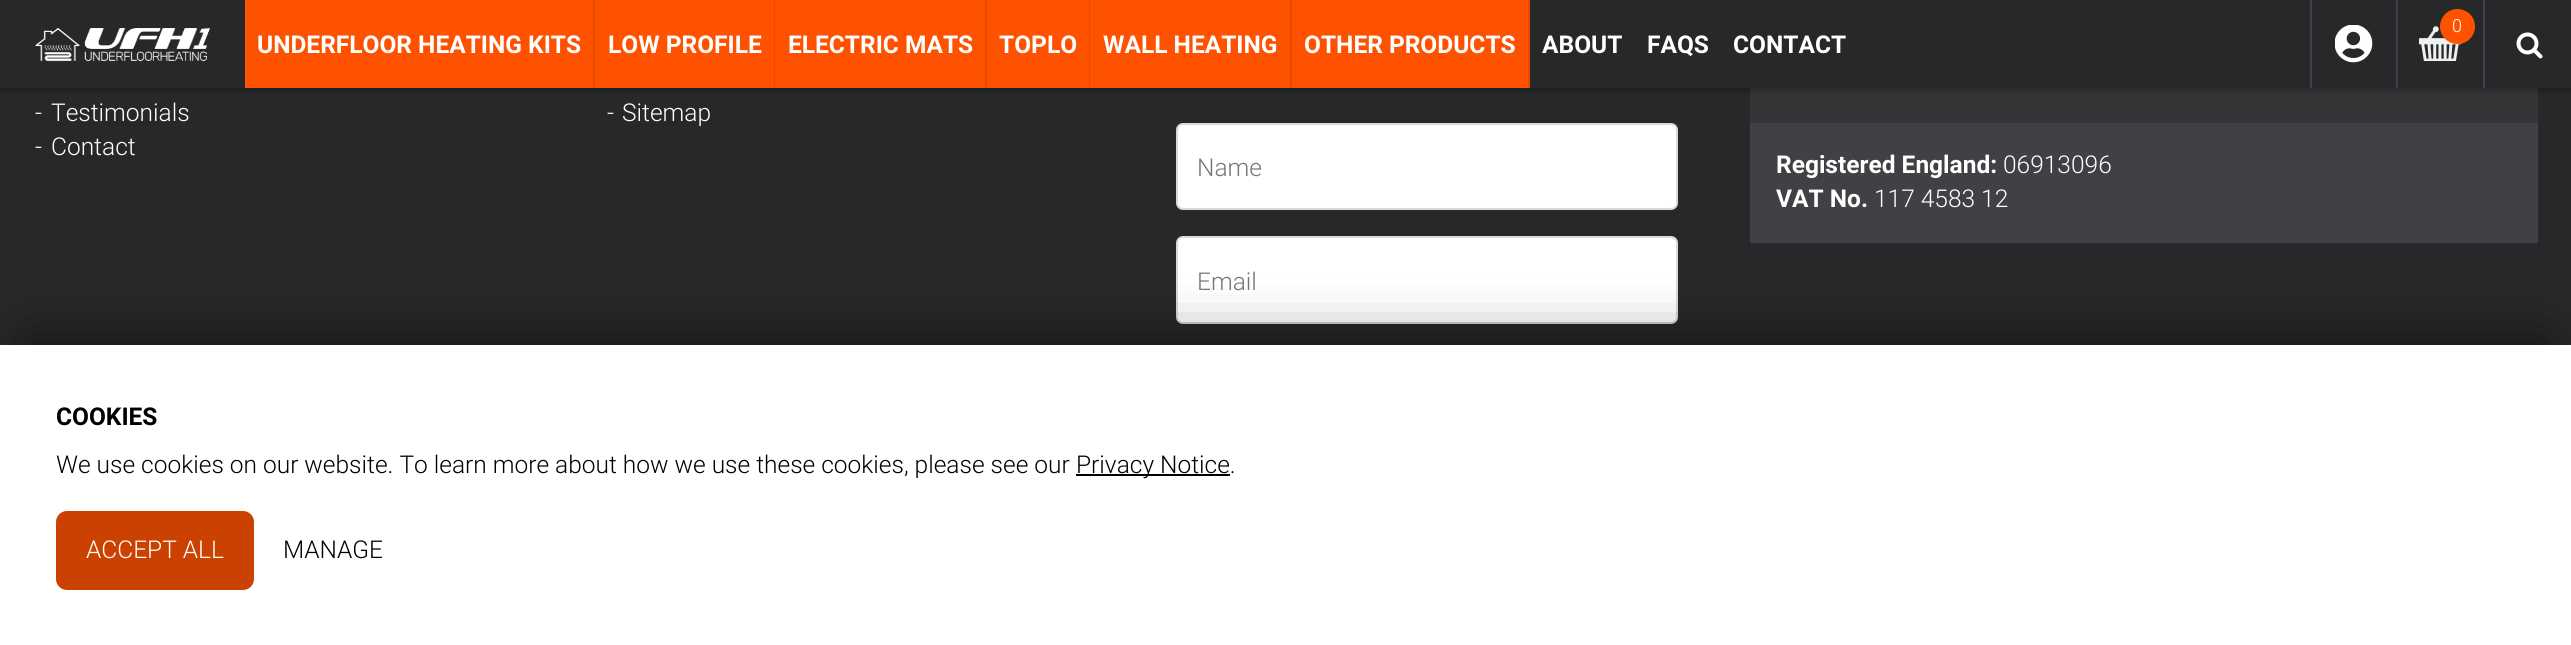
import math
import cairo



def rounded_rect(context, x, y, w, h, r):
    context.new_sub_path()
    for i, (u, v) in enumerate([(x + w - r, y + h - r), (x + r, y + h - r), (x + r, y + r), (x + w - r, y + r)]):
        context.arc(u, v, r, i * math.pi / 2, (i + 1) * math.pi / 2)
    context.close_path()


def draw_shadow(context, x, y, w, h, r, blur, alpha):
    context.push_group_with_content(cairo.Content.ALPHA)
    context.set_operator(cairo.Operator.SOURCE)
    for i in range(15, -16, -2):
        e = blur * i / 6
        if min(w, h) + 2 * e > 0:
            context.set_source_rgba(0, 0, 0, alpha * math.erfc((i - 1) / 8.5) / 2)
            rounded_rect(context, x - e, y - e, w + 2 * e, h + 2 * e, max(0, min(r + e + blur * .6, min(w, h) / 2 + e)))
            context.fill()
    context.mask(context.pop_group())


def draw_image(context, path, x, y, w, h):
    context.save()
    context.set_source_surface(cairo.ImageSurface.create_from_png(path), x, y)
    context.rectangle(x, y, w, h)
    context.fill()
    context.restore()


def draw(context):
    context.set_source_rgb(39 / 255, 40 / 255, 42 / 255)
    context.paint()
    context.set_source_rgb(51 / 255, 53 / 255, 55 / 255)
    context.rectangle(1750, 88, 788, 35)
    context.fill()
    context.set_source_rgb(0, 0, 0)
    draw_shadow(context, -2, -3, 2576, 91, 0, 4.5, 0.5)
    context.set_source_rgb(39 / 255, 40 / 255, 42 / 255)
    context.rectangle(0, 0, 2571, 88)
    context.fill()
    context.set_source_rgb(64 / 255, 65 / 255, 68 / 255)
    context.rectangle(2396, 0, 2, 88)
    context.fill()
    context.rectangle(2310, 0, 2, 88)
    context.fill()
    draw_image(context, "images/1.png", 2335, 25, 38, 38)
    context.rectangle(2483, 0, 2, 88)
    context.fill()
    draw_image(context, "images/2.png", 2419, 26, 43, 35)
    context.set_source_rgb(254 / 255, 82 / 255, 0)
    context.arc(2457.5, 26.5, 17.5, 0, 2 * math.pi)
    context.fill()
    draw_image(context, "images/3.png", 2516, 32, 27, 27)
    draw_image(context, "images/4.png", 35, 28, 175, 34)
    context.rectangle(245, 0, 348, 88)
    context.fill()
    context.set_source_rgb(229 / 255, 74 / 255, 0)
    context.rectangle(593, 0, 2, 88)
    context.fill()
    context.set_source_rgb(254 / 255, 82 / 255, 0)
    context.rectangle(595, 0, 179, 88)
    context.fill()
    context.set_source_rgb(229 / 255, 74 / 255, 0)
    context.rectangle(774, 0, 1, 88)
    context.fill()
    context.set_source_rgb(254 / 255, 82 / 255, 0)
    context.rectangle(775, 0, 210, 88)
    context.fill()
    context.set_source_rgb(229 / 255, 74 / 255, 0)
    context.rectangle(985, 0, 2, 88)
    context.fill()
    context.set_source_rgb(254 / 255, 82 / 255, 0)
    context.rectangle(987, 0, 102, 88)
    context.fill()
    context.set_source_rgb(229 / 255, 74 / 255, 0)
    context.rectangle(1089, 0, 1, 88)
    context.fill()
    context.set_source_rgb(254 / 255, 82 / 255, 0)
    context.rectangle(1090, 0, 200, 88)
    context.fill()
    context.set_source_rgb(229 / 255, 74 / 255, 0)
    context.rectangle(1290, 0, 2, 88)
    context.fill()
    context.set_source_rgb(254 / 255, 82 / 255, 0)
    context.rectangle(1292, 0, 236, 88)
    context.fill()
    context.set_source_rgb(229 / 255, 74 / 255, 0)
    context.rectangle(1528, 0, 2, 88)
    context.fill()
    context.set_source_rgb(1, 1, 1)
    rounded_rect(context, 1177, 124, 500, 85, 6)
    context.fill_preserve()
    context.set_source_rgb(217 / 255, 217 / 255, 217 / 255)
    context.stroke()
    context.set_source_rgb(1, 1, 1)
    rounded_rect(context, 1177, 237, 500, 86, 6)
    context.fill_preserve()
    context.set_source_rgb(217 / 255, 217 / 255, 217 / 255)
    context.stroke()
    context.set_source_rgb(64 / 255, 65 / 255, 68 / 255)
    context.rectangle(1750, 123, 788, 120)
    context.fill()
    context.set_source_rgb(0, 0, 0)
    draw_shadow(context, 28, 345, 2517, 245, 0, 28, 0.6)
    context.set_source_rgb(1, 1, 1)
    context.rectangle(0, 345, 2571, 300)
    context.fill()
    context.set_source_rgb(0, 0, 0)
    context.rectangle(1076, 474, 154, 2)
    context.fill()
    context.set_source_rgb(203 / 255, 66 / 255, 0)
    rounded_rect(context, 57, 512, 196, 77, 10)
    context.fill_preserve()
    context.stroke()
    context.select_font_face("Roboto Light")
    context.set_font_size(18)
    context.set_source_rgb(1, 1, 1)
    context.move_to(2452, 32)
    context.show_text("0")
    context.select_font_face("Roboto", cairo.FontSlant.NORMAL, cairo.FontWeight.BOLD)
    context.set_font_size(24.5)
    context.move_to(257, 53)
    context.show_text("UNDERFLOOR HEATING KITS")
    context.move_to(608, 53)
    context.show_text("LOW PROFILE")
    context.move_to(788, 53)
    context.show_text("ELECTRIC MATS")
    context.move_to(999, 53)
    context.show_text("TOPLO")
    context.move_to(1103, 53)
    context.show_text("WALL HEATING")
    context.move_to(1304, 53)
    context.show_text("OTHER PRODUCTS")
    context.move_to(1542, 53)
    context.show_text("ABOUT")
    context.move_to(1647, 53)
    context.show_text("FAQS")
    context.move_to(1733, 53)
    context.show_text("CONTACT")
    context.select_font_face("Roboto Light")
    context.move_to(35, 121)
    context.show_text("-")
    context.move_to(51, 121)
    context.show_text("Testimonials")
    context.move_to(35, 155)
    context.show_text("-")
    context.move_to(51, 155)
    context.show_text("Contact")
    context.move_to(607, 121)
    context.show_text("-")
    context.move_to(622, 121)
    context.show_text("Sitemap")
    context.set_source_rgb(117 / 255, 117 / 255, 117 / 255)
    context.move_to(1197, 176)
    context.show_text("Name")
    context.move_to(1197, 290)
    context.show_text("Email")
    context.select_font_face("Roboto", cairo.FontSlant.NORMAL, cairo.FontWeight.BOLD)
    context.set_source_rgb(1, 1, 1)
    context.move_to(1776, 173)
    context.show_text("Registered England:")
    context.select_font_face("Roboto Light")
    context.move_to(2003, 173)
    context.show_text("06913096")
    context.select_font_face("Roboto", cairo.FontSlant.NORMAL, cairo.FontWeight.BOLD)
    context.move_to(1776, 207)
    context.show_text("VAT No.")
    context.select_font_face("Roboto Light")
    context.move_to(1874, 207)
    context.show_text("117 4583 12")
    context.select_font_face("Roboto", cairo.FontSlant.NORMAL, cairo.FontWeight.BOLD)
    context.set_source_rgb(0, 0, 0)
    context.move_to(56, 425)
    context.show_text("COOKIES")
    context.select_font_face("Roboto Light")
    context.move_to(56, 473)
    context.show_text("We use cookies on our website. To learn more about how we use these cookies, please see our")
    context.move_to(1076, 473)
    context.show_text("Privacy Notice.")
    context.set_source_rgb(1, 1, 1)
    context.move_to(86, 558)
    context.show_text("ACCEPT ALL")
    context.set_source_rgb(0, 0, 0)
    context.move_to(283, 558)
    context.show_text("MANAGE")


surface = cairo.ImageSurface(cairo.Format.RGB24, 2571, 645)
context = cairo.Context(surface)
options = cairo.FontOptions()
options.set_hint_metrics(cairo.HintMetrics.OFF)
options.set_hint_style(cairo.HintStyle.NONE)
context.set_font_options(options)
context.set_miter_limit(4)
draw(context)
surface.write_to_png("out.png")
